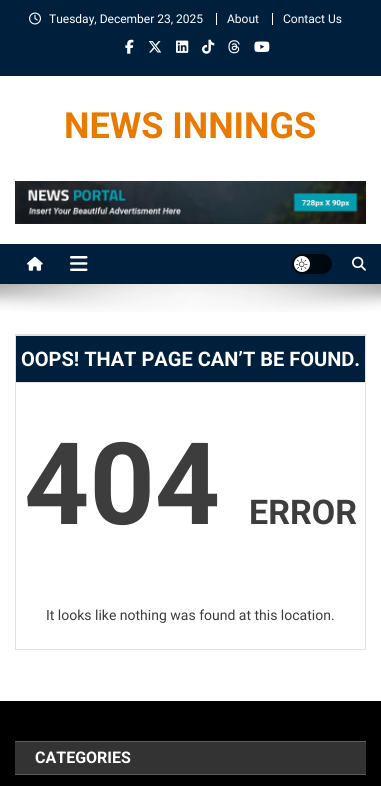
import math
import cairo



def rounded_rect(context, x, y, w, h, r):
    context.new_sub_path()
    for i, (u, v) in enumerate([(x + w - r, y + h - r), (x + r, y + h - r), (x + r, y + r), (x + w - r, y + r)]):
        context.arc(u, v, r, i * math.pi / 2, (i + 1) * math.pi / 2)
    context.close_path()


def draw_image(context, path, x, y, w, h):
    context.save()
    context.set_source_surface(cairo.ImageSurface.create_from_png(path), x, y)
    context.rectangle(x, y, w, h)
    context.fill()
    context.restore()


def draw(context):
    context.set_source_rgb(1, 1, 1)
    context.paint()
    context.set_source_rgb(0, 31 / 255, 61 / 255)
    context.rectangle(0, 0, 381, 76)
    context.fill()
    draw_image(context, "images/1.png", 29, 12, 12, 13)
    context.set_source_rgb(1, 1, 1)
    context.rectangle(216, 13, 1, 12)
    context.fill()
    context.rectangle(272, 13, 1, 12)
    context.fill()
    draw_image(context, "images/2.png", 125, 39, 9, 15)
    draw_image(context, "images/3.png", 148, 41, 14, 12)
    draw_image(context, "images/4.png", 176, 40, 13, 13)
    draw_image(context, "images/5.png", 202, 39, 13, 15)
    draw_image(context, "images/6.png", 228, 40, 12, 14)
    draw_image(context, "images/7.png", 254, 41, 16, 11)
    draw_image(context, "images/8.png", 15, 181, 351, 43)
    context.set_source_rgb(0, 31 / 255, 61 / 255)
    context.rectangle(0, 244, 381, 40)
    context.fill()
    draw_image(context, "images/9.png", 27, 256, 16, 15)
    draw_image(context, "images/10.png", 70, 256, 18, 15)
    context.set_source_rgb(0, 8 / 255, 15 / 255)
    rounded_rect(context, 292, 254, 40, 20, 10)
    context.fill()
    context.set_source_rgb(1, 1, 1)
    context.arc(302, 264, 8, 0, 2 * math.pi)
    context.fill()
    draw_image(context, "images/11.png", 296, 258, 12, 12)
    draw_image(context, "images/12.png", 352, 256, 14, 15)
    draw_image(context, "images/13.png", 0, 284, 381, 28)
    context.rectangle(15.5, 334.5, 350, 315)
    context.set_source_rgb(225 / 255, 225 / 255, 225 / 255)
    context.set_line_width(1)
    context.stroke()
    context.set_source_rgb(0, 31 / 255, 61 / 255)
    context.rectangle(16, 336, 349, 46)
    context.fill()
    context.set_source_rgb(225 / 255, 225 / 255, 225 / 255)
    context.rectangle(16, 335, 349, 1)
    context.fill()
    context.rectangle(16, 382, 349, 1)
    context.fill()
    context.set_source_rgb(0, 0, 0)
    context.rectangle(0, 701, 381, 85)
    context.fill()
    context.set_source_rgb(51 / 255, 51 / 255, 51 / 255)
    context.rectangle(15, 742, 351, 32)
    context.fill()
    context.set_source_rgb(92 / 255, 92 / 255, 92 / 255)
    context.rectangle(15, 741, 351, 1)
    context.fill()
    context.rectangle(15, 774, 351, 1)
    context.fill()
    context.select_font_face("Roboto")
    context.set_font_size(12)
    context.set_source_rgb(1, 1, 1)
    context.move_to(49, 23)
    context.show_text("Tuesday, December 23, 2025")
    context.move_to(227, 23)
    context.show_text("About")
    context.move_to(283, 23)
    context.show_text("Contact Us")
    context.select_font_face("Roboto", cairo.FontSlant.NORMAL, cairo.FontWeight.BOLD)
    context.set_font_size(36)
    context.set_source_rgb(232 / 255, 122 / 255, 0)
    context.move_to(64, 138)
    context.show_text("NEWS INNINGS")
    context.set_font_size(20)
    context.set_source_rgb(1, 1, 1)
    context.move_to(21, 366)
    context.show_text("OOPS! THAT PAGE CAN’T BE FOUND.")
    context.set_font_size(114)
    context.set_source_rgb(61 / 255, 61 / 255, 61 / 255)
    context.move_to(24, 524)
    context.show_text("404")
    context.set_font_size(34)
    context.move_to(249, 524)
    context.show_text("ERROR")
    context.select_font_face("Roboto")
    context.set_font_size(14)
    context.move_to(46, 620)
    context.show_text("It looks like nothing was found at this location.")
    context.select_font_face("Roboto", cairo.FontSlant.NORMAL, cairo.FontWeight.BOLD)
    context.set_font_size(16)
    context.set_source_rgb(1, 1, 1)
    context.move_to(35, 763)
    context.show_text("CATEGORIES")


surface = cairo.ImageSurface(cairo.Format.RGB24, 381, 786)
context = cairo.Context(surface)
options = cairo.FontOptions()
options.set_hint_metrics(cairo.HintMetrics.OFF)
options.set_hint_style(cairo.HintStyle.NONE)
context.set_font_options(options)
context.set_miter_limit(4)
draw(context)
surface.write_to_png("out.png")
